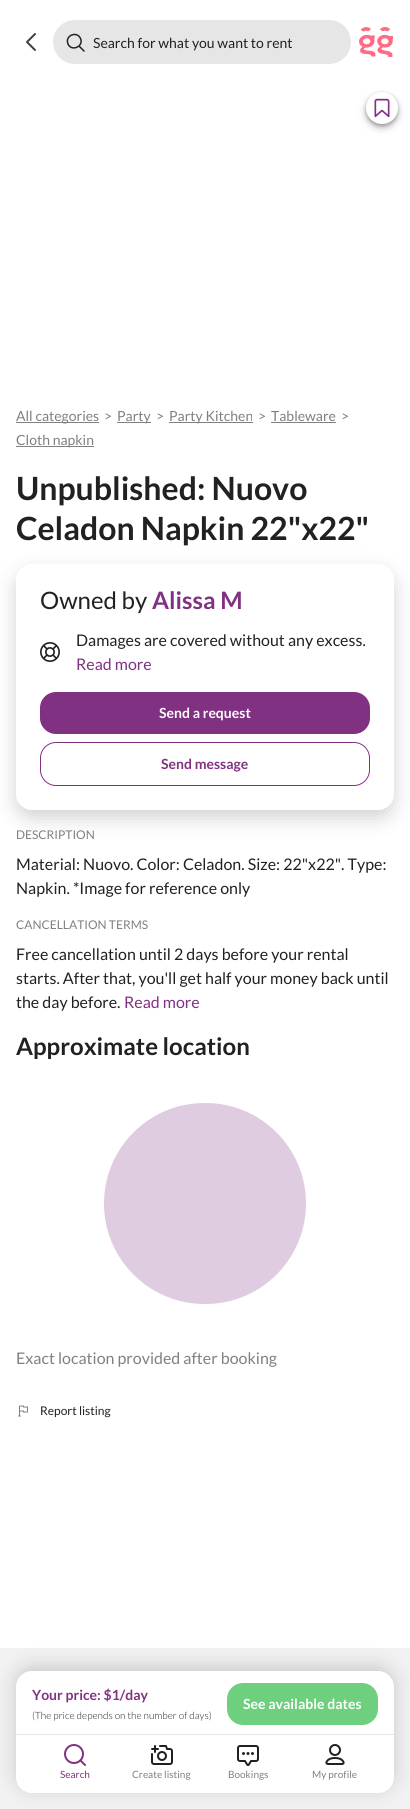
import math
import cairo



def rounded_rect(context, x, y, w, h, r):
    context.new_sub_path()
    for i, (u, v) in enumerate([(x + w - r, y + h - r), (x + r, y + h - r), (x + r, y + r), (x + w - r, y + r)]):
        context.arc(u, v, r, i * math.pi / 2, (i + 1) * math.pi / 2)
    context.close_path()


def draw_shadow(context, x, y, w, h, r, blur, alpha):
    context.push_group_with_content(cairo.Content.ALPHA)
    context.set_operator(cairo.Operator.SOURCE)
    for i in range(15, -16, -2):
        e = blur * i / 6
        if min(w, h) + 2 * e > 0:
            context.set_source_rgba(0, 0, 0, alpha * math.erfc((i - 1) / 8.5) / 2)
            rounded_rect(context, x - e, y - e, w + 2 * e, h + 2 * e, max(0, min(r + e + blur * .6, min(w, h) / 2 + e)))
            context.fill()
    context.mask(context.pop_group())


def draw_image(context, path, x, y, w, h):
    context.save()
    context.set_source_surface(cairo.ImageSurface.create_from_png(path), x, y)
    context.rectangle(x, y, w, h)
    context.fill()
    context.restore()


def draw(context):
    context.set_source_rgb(1, 1, 1)
    context.paint()
    draw_image(context, "images/1.png", 26, 33, 10, 18)
    context.set_source_rgb(230 / 255, 230 / 255, 230 / 255)
    rounded_rect(context, 53, 20, 298, 44, 22)
    context.fill()
    context.new_path()
    context.move_to(68, 44)
    context.curve_to(71.5, 52, 84, 46.5, 80.5, 38.5)
    context.curve_to(77, 30.5, 64.5, 35.5, 68, 44)
    context.close_path()
    context.move_to(79, 46)
    context.line_to(84, 51)
    context.set_source_rgb(33 / 255, 33 / 255, 33 / 255)
    context.set_line_width(1.5)
    context.set_line_cap(cairo.LineCap.ROUND)
    context.set_line_join(cairo.LineJoin.ROUND)
    context.stroke()
    draw_image(context, "images/2.png", 359, 27, 34, 30)
    context.set_source_rgb(26 / 255, 26 / 255, 26 / 255)
    draw_shadow(context, 366, 94, 32, 32, 16, 2, 0.3)
    context.set_source_rgb(0, 0, 0)
    draw_shadow(context, 366, 96, 32, 32, 16, 4, 0.2)
    context.set_source_rgb(1, 1, 1)
    context.arc(382, 108, 16, 0, 2 * math.pi)
    context.fill()
    draw_image(context, "images/3.png", 374, 98, 16, 20)
    context.set_source_rgb(128 / 255, 128 / 255, 128 / 255)
    context.rectangle(16, 422, 83, 1)
    context.fill()
    context.rectangle(117, 422, 34, 1)
    context.fill()
    context.rectangle(169, 422, 84, 1)
    context.fill()
    context.rectangle(271, 422, 65, 1)
    context.fill()
    context.rectangle(16, 446, 78, 1)
    context.fill()
    context.set_source_rgb(26 / 255, 26 / 255, 26 / 255)
    draw_shadow(context, 16, 572, 378, 246, 16, 10, 0.2)
    context.set_source_rgb(1, 1, 1)
    rounded_rect(context, 16, 564, 378, 246, 16)
    context.fill()
    draw_image(context, "images/4.png", 40, 642, 20, 20)
    context.set_source_rgb(129 / 255, 49 / 255, 129 / 255)
    rounded_rect(context, 40, 692, 330, 42, 16)
    context.fill()
    rounded_rect(context, 40.5, 742.5, 329, 43, 15.5)
    context.set_line_width(1)
    context.set_line_cap(cairo.LineCap.BUTT)
    context.set_line_join(cairo.LineJoin.MITER)
    context.stroke()
    context.set_source_rgb(224 / 255, 204 / 255, 224 / 255)
    rounded_rect(context, 104, 1103, 202, 201, 100.5)
    context.fill()
    draw_image(context, "images/5.png", 18, 1405, 10, 12)
    context.set_source_rgb(242 / 255, 242 / 255, 242 / 255)
    context.rectangle(0, 1648, 410, 161)
    context.fill()
    context.set_source_rgb(26 / 255, 26 / 255, 26 / 255)
    draw_shadow(context, 16, 1667, 378, 122, 16, 10, 0.2)
    context.set_source_rgb(1, 1, 1)
    rounded_rect(context, 16, 1671, 378, 122, 16)
    context.fill()
    context.set_source_rgb(110 / 255, 207 / 255, 126 / 255)
    rounded_rect(context, 227, 1683, 151, 42, 16)
    context.fill()
    context.set_source_rgb(230 / 255, 230 / 255, 230 / 255)
    context.rectangle(16, 1734, 378, 1)
    context.fill()
    draw_image(context, "images/6.png", 64, 1744, 22, 22)
    draw_image(context, "images/7.png", 151, 1745, 22, 20)
    draw_image(context, "images/8.png", 237, 1745, 22, 21)
    draw_image(context, "images/9.png", 325, 1744, 20, 21)
    context.select_font_face("Lato")
    context.set_font_size(14)
    context.set_source_rgb(33 / 255, 33 / 255, 33 / 255)
    context.move_to(93, 48)
    context.show_text("Search for what you want to rent")
    context.set_source_rgb(128 / 255, 128 / 255, 128 / 255)
    context.move_to(16, 421)
    context.show_text("All categories")
    context.move_to(104, 421)
    context.show_text(">")
    context.move_to(117, 421)
    context.show_text("Party")
    context.move_to(156, 421)
    context.show_text(">")
    context.move_to(169, 421)
    context.show_text("Party Kitchen")
    context.move_to(258, 421)
    context.show_text(">")
    context.move_to(271, 421)
    context.show_text("Tableware")
    context.move_to(341, 421)
    context.show_text(">")
    context.move_to(16, 445)
    context.show_text("Cloth napkin")
    context.select_font_face("Lato", cairo.FontSlant.NORMAL, cairo.FontWeight.BOLD)
    context.set_font_size(32)
    context.set_source_rgb(33 / 255, 33 / 255, 33 / 255)
    context.move_to(16, 500)
    context.show_text("Unpublished: Nuovo")
    context.move_to(16, 540)
    context.show_text("Celadon Napkin 22\"x22\"")
    context.select_font_face("Lato")
    context.set_font_size(24)
    context.move_to(40, 609)
    context.show_text("Owned by")
    context.select_font_face("Lato", cairo.FontSlant.NORMAL, cairo.FontWeight.BOLD)
    context.set_source_rgb(129 / 255, 49 / 255, 129 / 255)
    context.move_to(152, 609)
    context.show_text("Alissa M")
    context.select_font_face("Lato")
    context.set_font_size(16)
    context.set_source_rgb(33 / 255, 33 / 255, 33 / 255)
    context.move_to(76, 646)
    context.show_text("Damages are covered without any excess.")
    context.set_source_rgb(129 / 255, 49 / 255, 129 / 255)
    context.move_to(76, 670)
    context.show_text("Read more")
    context.select_font_face("Lato", cairo.FontSlant.NORMAL, cairo.FontWeight.BOLD)
    context.set_font_size(14)
    context.set_source_rgb(1, 1, 1)
    context.move_to(159, 718)
    context.show_text("Send a request")
    context.set_source_rgb(129 / 255, 49 / 255, 129 / 255)
    context.move_to(161, 769)
    context.show_text("Send message")
    context.select_font_face("Lato")
    context.set_font_size(12)
    context.set_source_rgb(128 / 255, 128 / 255, 128 / 255)
    context.move_to(16, 839)
    context.show_text("DESCRIPTION")
    context.set_font_size(16)
    context.set_source_rgb(33 / 255, 33 / 255, 33 / 255)
    context.move_to(16, 870)
    context.show_text("Material: Nuovo. Color: Celadon. Size: 22\"x22\". Type:")
    context.move_to(16, 894)
    context.show_text("Napkin. *Image for reference only")
    context.set_font_size(12)
    context.set_source_rgb(128 / 255, 128 / 255, 128 / 255)
    context.move_to(16, 929)
    context.show_text("CANCELLATION TERMS")
    context.set_font_size(16)
    context.set_source_rgb(33 / 255, 33 / 255, 33 / 255)
    context.move_to(16, 960)
    context.show_text("Free cancellation until 2 days before your rental")
    context.move_to(16, 984)
    context.show_text("starts. After that, you'll get half your money back until")
    context.move_to(16, 1008)
    context.show_text("the day before.")
    context.set_source_rgb(129 / 255, 49 / 255, 129 / 255)
    context.move_to(124, 1008)
    context.show_text("Read more")
    context.select_font_face("Lato", cairo.FontSlant.NORMAL, cairo.FontWeight.BOLD)
    context.set_font_size(24)
    context.set_source_rgb(33 / 255, 33 / 255, 33 / 255)
    context.move_to(16, 1055)
    context.show_text("Approximate location")
    context.select_font_face("Lato")
    context.set_font_size(16)
    context.set_source_rgb(128 / 255, 128 / 255, 128 / 255)
    context.move_to(16, 1364)
    context.show_text("Exact location provided after booking")
    context.set_font_size(12)
    context.set_source_rgb(33 / 255, 33 / 255, 33 / 255)
    context.move_to(40, 1415)
    context.show_text("Report listing")
    context.select_font_face("Lato", cairo.FontSlant.NORMAL, cairo.FontWeight.BOLD)
    context.set_font_size(14)
    context.set_source_rgb(129 / 255, 49 / 255, 129 / 255)
    context.move_to(32, 1700)
    context.show_text("Your price: $1/day")
    context.select_font_face("Lato Light")
    context.set_font_size(10)
    context.set_source_rgb(33 / 255, 33 / 255, 33 / 255)
    context.move_to(32, 1719)
    context.show_text("(The price depends on the number of days)")
    context.select_font_face("Lato", cairo.FontSlant.NORMAL, cairo.FontWeight.BOLD)
    context.set_font_size(14)
    context.set_source_rgb(1, 1, 1)
    context.move_to(243, 1709)
    context.show_text("See available dates")
    context.select_font_face("Lato")
    context.set_font_size(10)
    context.set_source_rgb(129 / 255, 49 / 255, 129 / 255)
    context.move_to(60, 1778)
    context.show_text("Search")
    context.set_source_rgb(128 / 255, 128 / 255, 128 / 255)
    context.move_to(132, 1778)
    context.show_text("Create listing")
    context.move_to(228, 1778)
    context.show_text("Bookings")
    context.move_to(312, 1778)
    context.show_text("My profile")


surface = cairo.ImageSurface(cairo.Format.RGB24, 410, 1809)
context = cairo.Context(surface)
options = cairo.FontOptions()
options.set_hint_metrics(cairo.HintMetrics.OFF)
options.set_hint_style(cairo.HintStyle.NONE)
context.set_font_options(options)
context.set_miter_limit(4)
draw(context)
surface.write_to_png("out.png")
